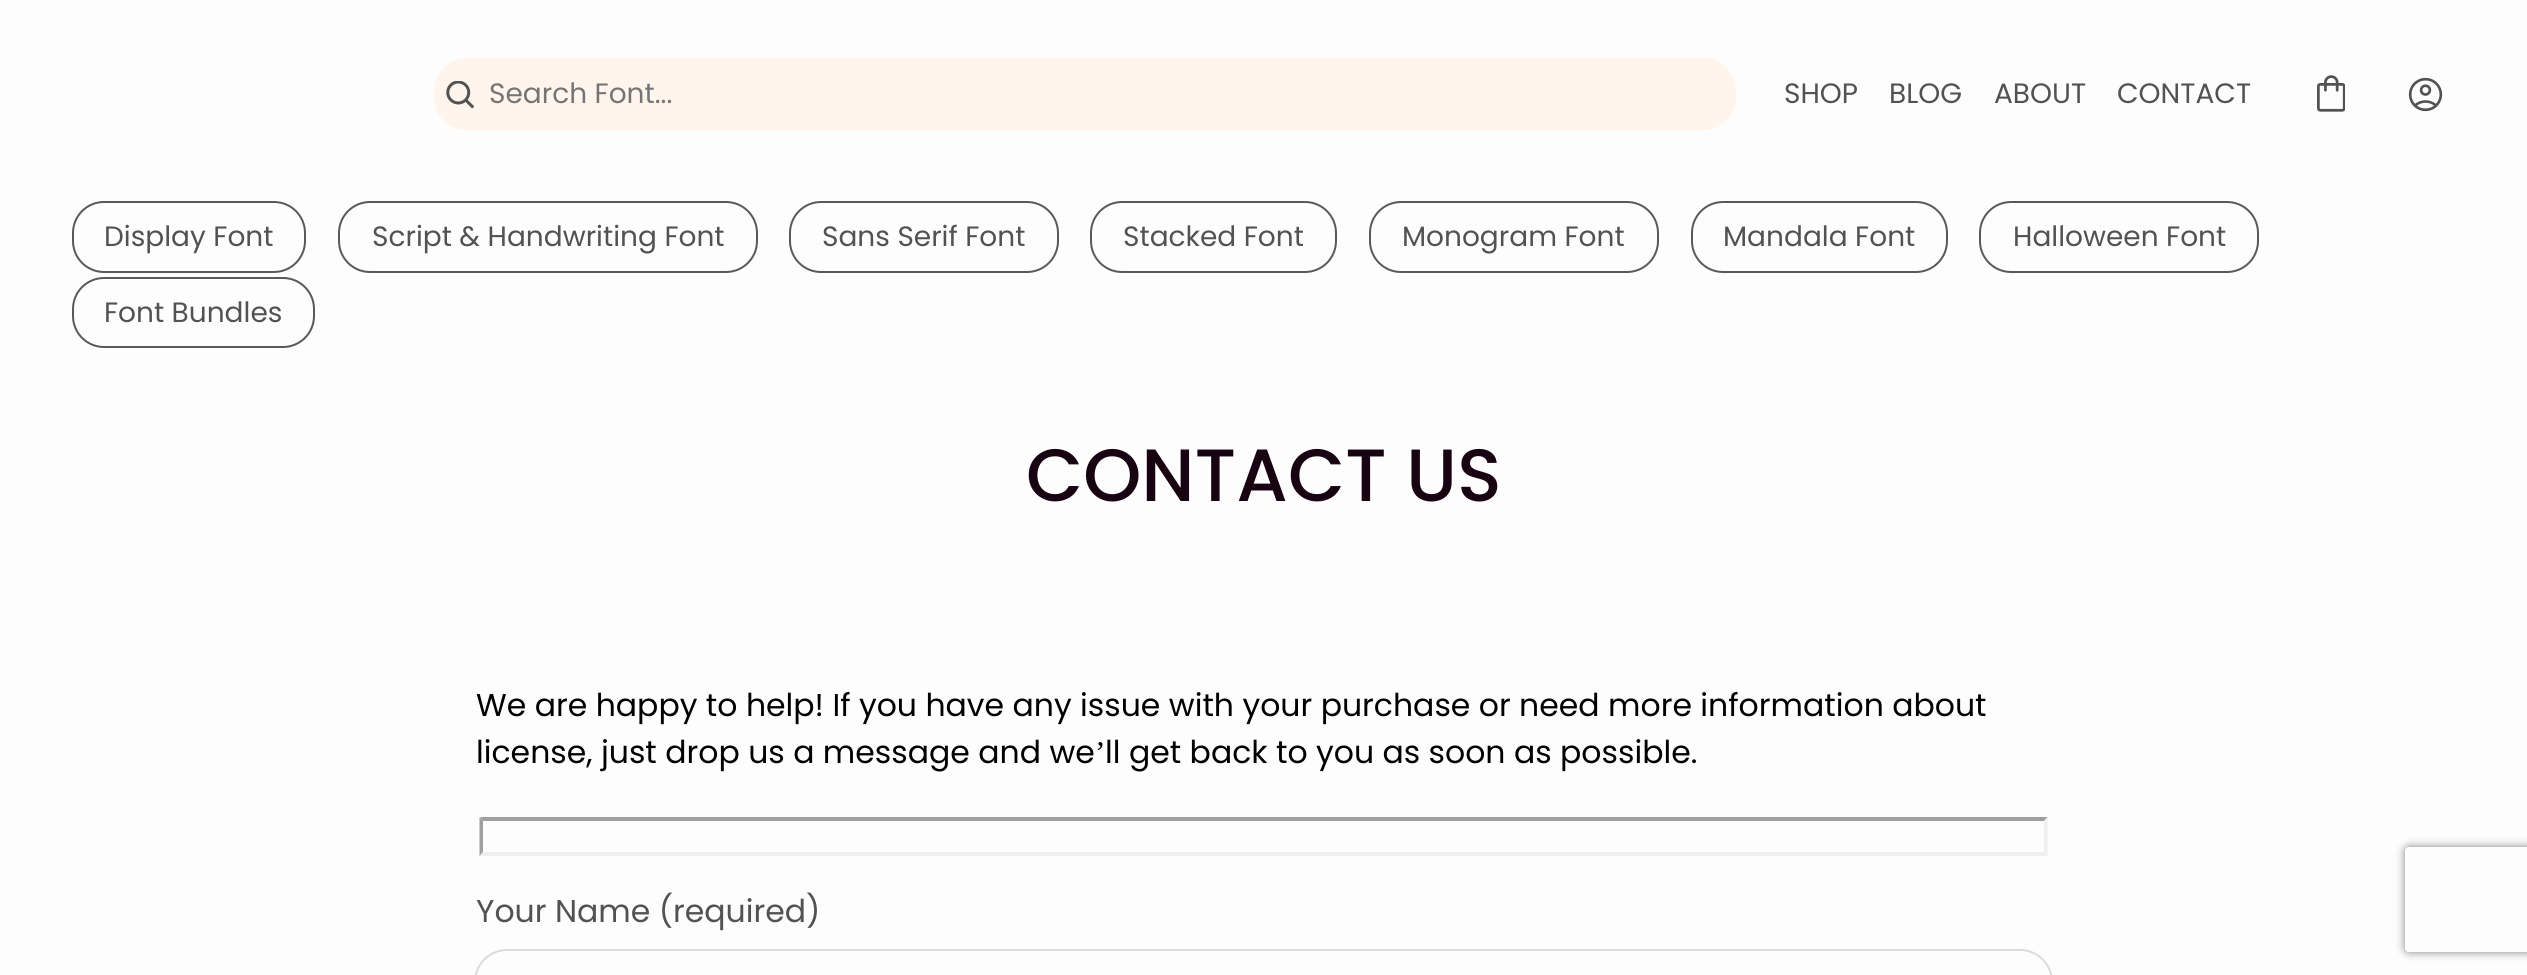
import math
import cairo



def rounded_rect(context, x, y, w, h, r):
    context.new_sub_path()
    for i, (u, v) in enumerate([(x + w - r, y + h - r), (x + r, y + h - r), (x + r, y + r), (x + w - r, y + r)]):
        context.arc(u, v, r, i * math.pi / 2, (i + 1) * math.pi / 2)
    context.close_path()


def draw_shadow(context, x, y, w, h, r, blur, alpha):
    context.push_group_with_content(cairo.Content.ALPHA)
    context.set_operator(cairo.Operator.SOURCE)
    for i in range(15, -16, -2):
        e = blur * i / 6
        if min(w, h) + 2 * e > 0:
            context.set_source_rgba(0, 0, 0, alpha * math.erfc((i - 1) / 8.5) / 2)
            rounded_rect(context, x - e, y - e, w + 2 * e, h + 2 * e, max(0, min(r + e + blur * .6, min(w, h) / 2 + e)))
            context.fill()
    context.mask(context.pop_group())


def draw_image(context, path, x, y, w, h):
    context.save()
    context.set_source_surface(cairo.ImageSurface.create_from_png(path), x, y)
    context.rectangle(x, y, w, h)
    context.fill()
    context.restore()


def draw(context):
    context.set_source_rgb(253 / 255, 253 / 255, 253 / 255)
    context.paint()
    context.set_source_rgb(1, 245 / 255, 237 / 255)
    rounded_rect(context, 434, 58, 1302, 72, 32)
    context.fill()
    draw_image(context, "images/1.png", 446, 81, 28, 28)
    draw_image(context, "images/2.png", 2317, 75, 28, 37)
    draw_image(context, "images/3.png", 2408, 77, 35, 35)
    rounded_rect(context, 73, 202, 232, 70, 31)
    context.set_source_rgb(89 / 255, 89 / 255, 89 / 255)
    context.stroke()
    rounded_rect(context, 339, 202, 418, 70, 31)
    context.stroke()
    rounded_rect(context, 790, 202, 268, 70, 31)
    context.stroke()
    rounded_rect(context, 1091, 202, 245, 70, 31)
    context.stroke()
    rounded_rect(context, 1370, 202, 288, 70, 31)
    context.stroke()
    rounded_rect(context, 1692, 202, 255, 70, 31)
    context.stroke()
    rounded_rect(context, 1980, 202, 278, 70, 31)
    context.stroke()
    rounded_rect(context, 73, 278, 241, 69, 31)
    context.stroke()
    context.set_source_rgb(159 / 255, 159 / 255, 159 / 255)
    context.new_path()
    context.move_to(480, 817)
    context.line_to(2048, 817)
    context.line_to(2044, 821)
    context.line_to(483, 821)
    context.close_path()
    context.fill()
    context.set_source_rgb(239 / 255, 239 / 255, 239 / 255)
    context.new_path()
    context.move_to(2047.5, 817)
    context.line_to(2047.5, 856)
    context.line_to(2044, 852)
    context.line_to(2044, 821)
    context.close_path()
    context.fill()
    context.new_path()
    context.move_to(2048, 856)
    context.line_to(480, 856)
    context.line_to(483, 852)
    context.line_to(2044, 852)
    context.close_path()
    context.fill()
    context.set_source_rgb(159 / 255, 159 / 255, 159 / 255)
    context.new_path()
    context.move_to(479.5, 856)
    context.line_to(479.5, 817)
    context.line_to(483, 821)
    context.line_to(483, 852)
    context.close_path()
    context.fill()
    rounded_rect(context, 475, 950, 1577, 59, 32)
    context.set_source_rgb(219 / 255, 219 / 255, 219 / 255)
    context.stroke()
    context.save()
    context.set_fill_rule(cairo.FillRule.EVEN_ODD)
    context.new_path()
    context.move_to(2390, 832)
    context.line_to(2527, 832)
    context.line_to(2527, 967)
    context.line_to(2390, 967)
    context.close_path()
    context.move_to(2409, 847)
    context.line_to(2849, 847)
    context.curve_to(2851, 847, 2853, 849, 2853, 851)
    context.line_to(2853, 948)
    context.curve_to(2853, 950, 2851, 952, 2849, 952)
    context.line_to(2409, 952)
    context.curve_to(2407, 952, 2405, 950, 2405, 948)
    context.line_to(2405, 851)
    context.curve_to(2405, 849, 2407, 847, 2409, 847)
    context.close_path()
    context.clip()
    context.set_source_rgb(128 / 255, 128 / 255, 128 / 255)
    draw_shadow(context, 2405, 847, 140, 105, 4, 4.5, 1)
    context.restore()
    context.select_font_face("Poppins")
    context.set_font_size(28)
    context.set_source_rgb(117 / 255, 117 / 255, 117 / 255)
    context.move_to(489, 103)
    context.show_text("Search Font...")
    context.set_source_rgb(82 / 255, 82 / 255, 82 / 255)
    context.move_to(1784, 103)
    context.show_text("SHOP")
    context.move_to(1889, 103)
    context.show_text("BLOG")
    context.move_to(1994, 103)
    context.show_text("ABOUT")
    context.move_to(2117, 103)
    context.show_text("CONTACT")
    context.move_to(104, 246)
    context.show_text("Display Font")
    context.move_to(372, 246)
    context.show_text("Script & Handwriting Font")
    context.move_to(822, 246)
    context.show_text("Sans Serif Font")
    context.move_to(1123, 246)
    context.show_text("Stacked Font")
    context.move_to(1402, 246)
    context.show_text("Monogram Font")
    context.move_to(1723, 246)
    context.show_text("Mandala Font")
    context.move_to(2013, 246)
    context.show_text("Halloween Font")
    context.move_to(104, 322)
    context.show_text("Font Bundles")
    context.select_font_face("Poppins Medium")
    context.set_font_size(74)
    context.set_source_rgb(23 / 255, 3 / 255, 18 / 255)
    context.move_to(1026, 501)
    context.show_text("CONTACT US")
    context.select_font_face("Poppins")
    context.set_font_size(31.5)
    context.set_source_rgb(0, 0, 0)
    context.move_to(476, 716)
    context.show_text("We are happy to help! If you have any issue with your purchase or need more information about")
    context.move_to(476, 763)
    context.show_text("license, just drop us a message and we")
    context.select_font_face("Liberation Serif")
    context.move_to(1095, 763)
    context.show_text("’")
    context.select_font_face("Poppins")
    context.move_to(1105, 763)
    context.show_text("ll get back to you as soon as possible.")
    context.set_source_rgb(82 / 255, 82 / 255, 82 / 255)
    context.move_to(476, 922)
    context.show_text("Your Name (required)")


surface = cairo.ImageSurface(cairo.Format.RGB24, 2527, 975)
context = cairo.Context(surface)
options = cairo.FontOptions()
options.set_hint_metrics(cairo.HintMetrics.OFF)
options.set_hint_style(cairo.HintStyle.NONE)
context.set_font_options(options)
context.set_miter_limit(4)
draw(context)
surface.write_to_png("out.png")
